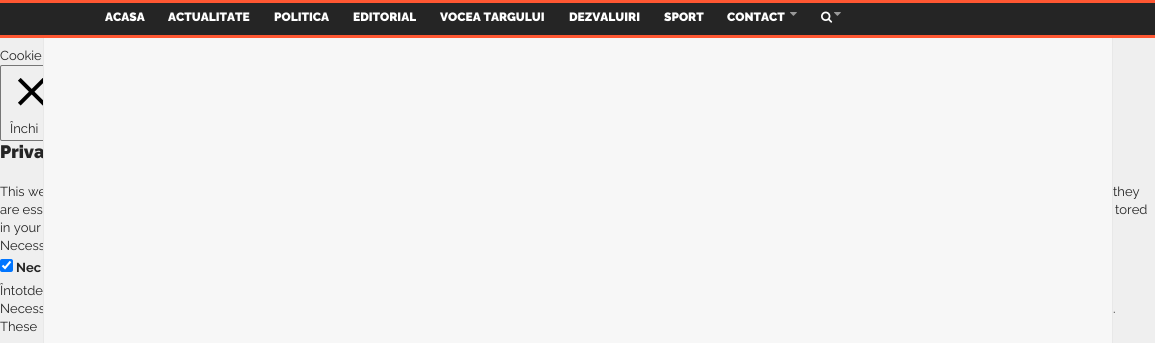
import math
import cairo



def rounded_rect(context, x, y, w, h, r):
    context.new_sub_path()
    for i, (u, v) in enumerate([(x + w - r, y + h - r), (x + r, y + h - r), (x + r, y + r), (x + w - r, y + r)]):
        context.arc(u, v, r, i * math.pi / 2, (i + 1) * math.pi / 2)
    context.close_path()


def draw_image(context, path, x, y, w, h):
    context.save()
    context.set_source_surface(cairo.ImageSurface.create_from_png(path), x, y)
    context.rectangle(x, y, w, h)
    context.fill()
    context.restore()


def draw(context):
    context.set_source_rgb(239 / 255, 239 / 255, 239 / 255)
    context.paint()
    context.set_source_rgb(1, 87 / 255, 50 / 255)
    context.rectangle(0, 0, 1155, 3)
    context.fill()
    context.set_source_rgb(37 / 255, 37 / 255, 37 / 255)
    context.rectangle(0, 3, 1155, 32)
    context.fill()
    context.set_source_rgb(1, 87 / 255, 50 / 255)
    context.rectangle(0, 35, 1155, 3)
    context.fill()
    draw_image(context, "images/1.png", 790, 12, 7, 4)
    draw_image(context, "images/2.png", 821, 11, 12, 12)
    draw_image(context, "images/1.png", 834, 12, 7, 4)
    rounded_rect(context, 0.5, 65.5, 62, 75, 1.5)
    context.set_source_rgb(118 / 255, 118 / 255, 118 / 255)
    context.set_line_width(1)
    context.stroke()
    draw_image(context, "images/3.png", 18, 78, 25, 28)
    context.set_source_rgb(0, 117 / 255, 1)
    rounded_rect(context, 0, 259, 13, 13, 2)
    context.fill()
    context.new_path()
    context.move_to(2.5, 265.5)
    context.line_to(5, 268)
    context.line_to(10.5, 261.5)
    context.set_source_rgb(1, 1, 1)
    context.set_line_width(2.1)
    context.stroke()
    context.select_font_face("Raleway Black")
    context.set_font_size(12)
    context.move_to(105, 21)
    context.show_text("ACASA")
    context.move_to(168, 21)
    context.show_text("ACTUALITATE")
    context.move_to(274, 21)
    context.show_text("POLITICA")
    context.move_to(353, 21)
    context.show_text("EDITORIAL")
    context.move_to(440, 21)
    context.show_text("VOCEA TARGULUI")
    context.move_to(569, 21)
    context.show_text("DEZVALUIRI")
    context.move_to(664, 21)
    context.show_text("SPORT")
    context.move_to(727, 21)
    context.show_text("CONTACT")
    context.select_font_face("Raleway")
    context.set_font_size(13)
    context.set_source_rgb(37 / 255, 37 / 255, 37 / 255)
    context.move_to(0, 60)
    context.show_text("Cookie")
    context.move_to(10, 133)
    context.show_text("Închi")
    context.select_font_face("Raleway Black")
    context.set_font_size(18)
    context.move_to(0, 158)
    context.show_text("Priva")
    context.select_font_face("Raleway")
    context.set_font_size(13)
    context.move_to(0, 196)
    context.show_text("This we")
    context.move_to(1113, 196)
    context.show_text("they")
    context.set_source_rgb(232 / 255, 232 / 255, 232 / 255)
    context.rectangle(1112, 38, 1, 305)
    context.fill()
    context.set_source_rgb(37 / 255, 37 / 255, 37 / 255)
    context.move_to(0, 214)
    context.show_text("are ess")
    context.move_to(1115, 214)
    context.show_text("tored")
    context.move_to(0, 232)
    context.show_text("in your")
    context.move_to(0, 250)
    context.show_text("Necess")
    context.select_font_face("Raleway", cairo.FontSlant.NORMAL, cairo.FontWeight.BOLD)
    context.move_to(16, 272)
    context.show_text("Nec")
    context.select_font_face("Raleway")
    context.move_to(0, 295)
    context.show_text("Întotde")
    context.move_to(0, 313)
    context.show_text("Necess")
    context.set_source_rgb(232 / 255, 232 / 255, 232 / 255)
    context.rectangle(43, 38, 1, 305)
    context.fill()
    context.set_source_rgb(247 / 255, 247 / 255, 247 / 255)
    context.rectangle(44, 38, 1068, 305)
    context.fill()
    context.set_source_rgb(37 / 255, 37 / 255, 37 / 255)
    context.move_to(1113, 313)
    context.show_text(".")
    context.move_to(0, 331)
    context.show_text("These")


surface = cairo.ImageSurface(cairo.Format.RGB24, 1155, 343)
context = cairo.Context(surface)
options = cairo.FontOptions()
options.set_hint_metrics(cairo.HintMetrics.OFF)
options.set_hint_style(cairo.HintStyle.NONE)
context.set_font_options(options)
context.set_miter_limit(4)
draw(context)
surface.write_to_png("out.png")
